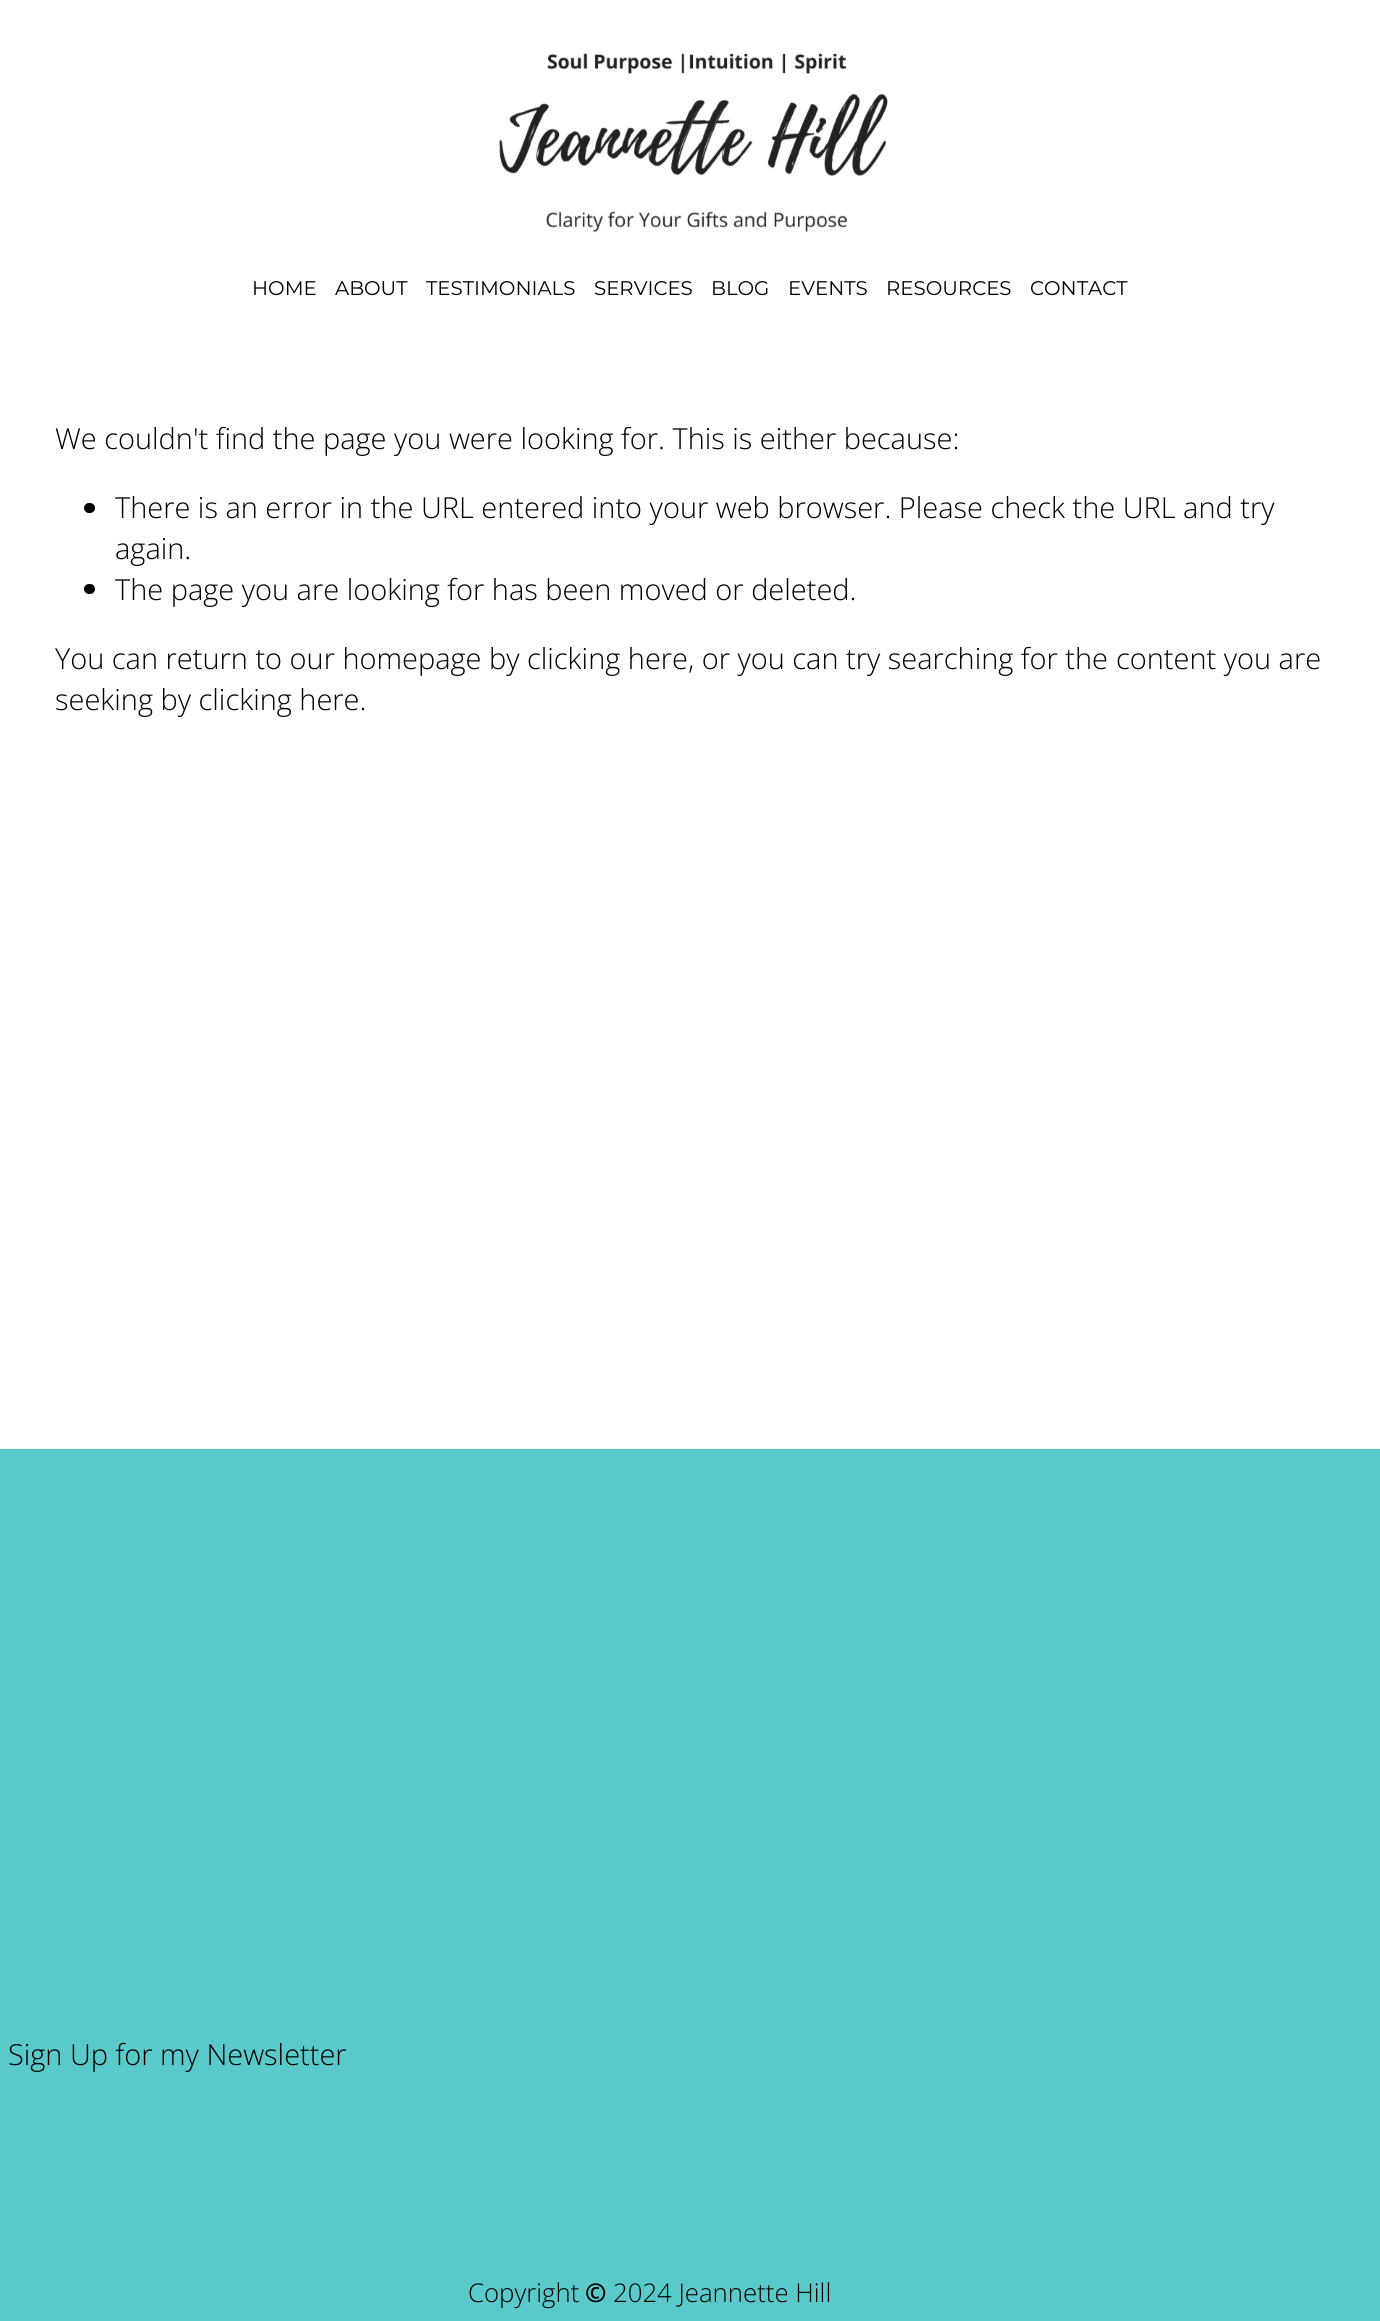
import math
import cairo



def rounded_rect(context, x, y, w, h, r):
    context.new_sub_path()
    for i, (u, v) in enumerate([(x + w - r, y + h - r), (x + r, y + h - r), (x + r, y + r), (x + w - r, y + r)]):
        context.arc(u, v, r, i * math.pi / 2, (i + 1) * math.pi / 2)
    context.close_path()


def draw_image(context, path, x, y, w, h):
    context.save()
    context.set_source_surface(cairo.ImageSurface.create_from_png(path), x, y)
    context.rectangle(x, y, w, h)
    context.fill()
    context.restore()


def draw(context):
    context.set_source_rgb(1, 1, 1)
    context.paint()
    draw_image(context, "images/1.png", 499, 53, 389, 179)
    context.set_source_rgb(0, 0, 0)
    rounded_rect(context, 84, 503, 11, 10, 5)
    context.fill()
    rounded_rect(context, 84, 584, 11, 10, 5)
    context.fill()
    context.set_source_rgb(90 / 255, 201 / 255, 201 / 255)
    context.rectangle(0, 1449, 1380, 872)
    context.fill()
    context.select_font_face("Montserrat Thin")
    context.set_font_size(19.75)
    context.set_source_rgb(0, 0, 0)
    context.move_to(252, 295)
    context.show_text("HOME")
    context.move_to(335, 295)
    context.show_text("ABOUT")
    context.move_to(426, 295)
    context.show_text("TESTIMONIALS")
    context.move_to(594, 295)
    context.show_text("SERVICES")
    context.move_to(711, 295)
    context.show_text("BLOG")
    context.move_to(788, 295)
    context.show_text("EVENTS")
    context.move_to(886, 295)
    context.show_text("RESOURCES")
    context.move_to(1030, 295)
    context.show_text("CONTACT")
    context.select_font_face("Open Sans Light")
    context.set_font_size(28.95)
    context.move_to(55, 449)
    context.show_text("We couldn't find the page you were looking for. This is either because:")
    context.move_to(115, 518)
    context.show_text("There is an error in the URL entered into your web browser. Please check the URL and try")
    context.move_to(115, 559)
    context.show_text("again.")
    context.move_to(115, 600)
    context.show_text("The page you are looking for has been moved or deleted.")
    context.move_to(55, 669)
    context.show_text("You can return to our homepage by")
    context.move_to(527, 669)
    context.show_text("clicking here, or you can try searching for the")
    context.move_to(1116, 669)
    context.show_text("content you are")
    context.move_to(55, 710)
    context.show_text("seeking by clicking here.")
    context.move_to(8, 2065)
    context.show_text("Sign Up for my Newsletter")
    context.set_font_size(25.75)
    context.move_to(468, 2302)
    context.show_text("Copyright")
    context.select_font_face("Open Sans", cairo.FontSlant.NORMAL, cairo.FontWeight.BOLD)
    context.move_to(585, 2302)
    context.show_text("©")
    context.select_font_face("Open Sans Light")
    context.move_to(613, 2302)
    context.show_text("2024 Jeannette Hill")


surface = cairo.ImageSurface(cairo.Format.RGB24, 1380, 2321)
context = cairo.Context(surface)
options = cairo.FontOptions()
options.set_hint_metrics(cairo.HintMetrics.OFF)
options.set_hint_style(cairo.HintStyle.NONE)
context.set_font_options(options)
context.set_miter_limit(4)
draw(context)
surface.write_to_png("out.png")
